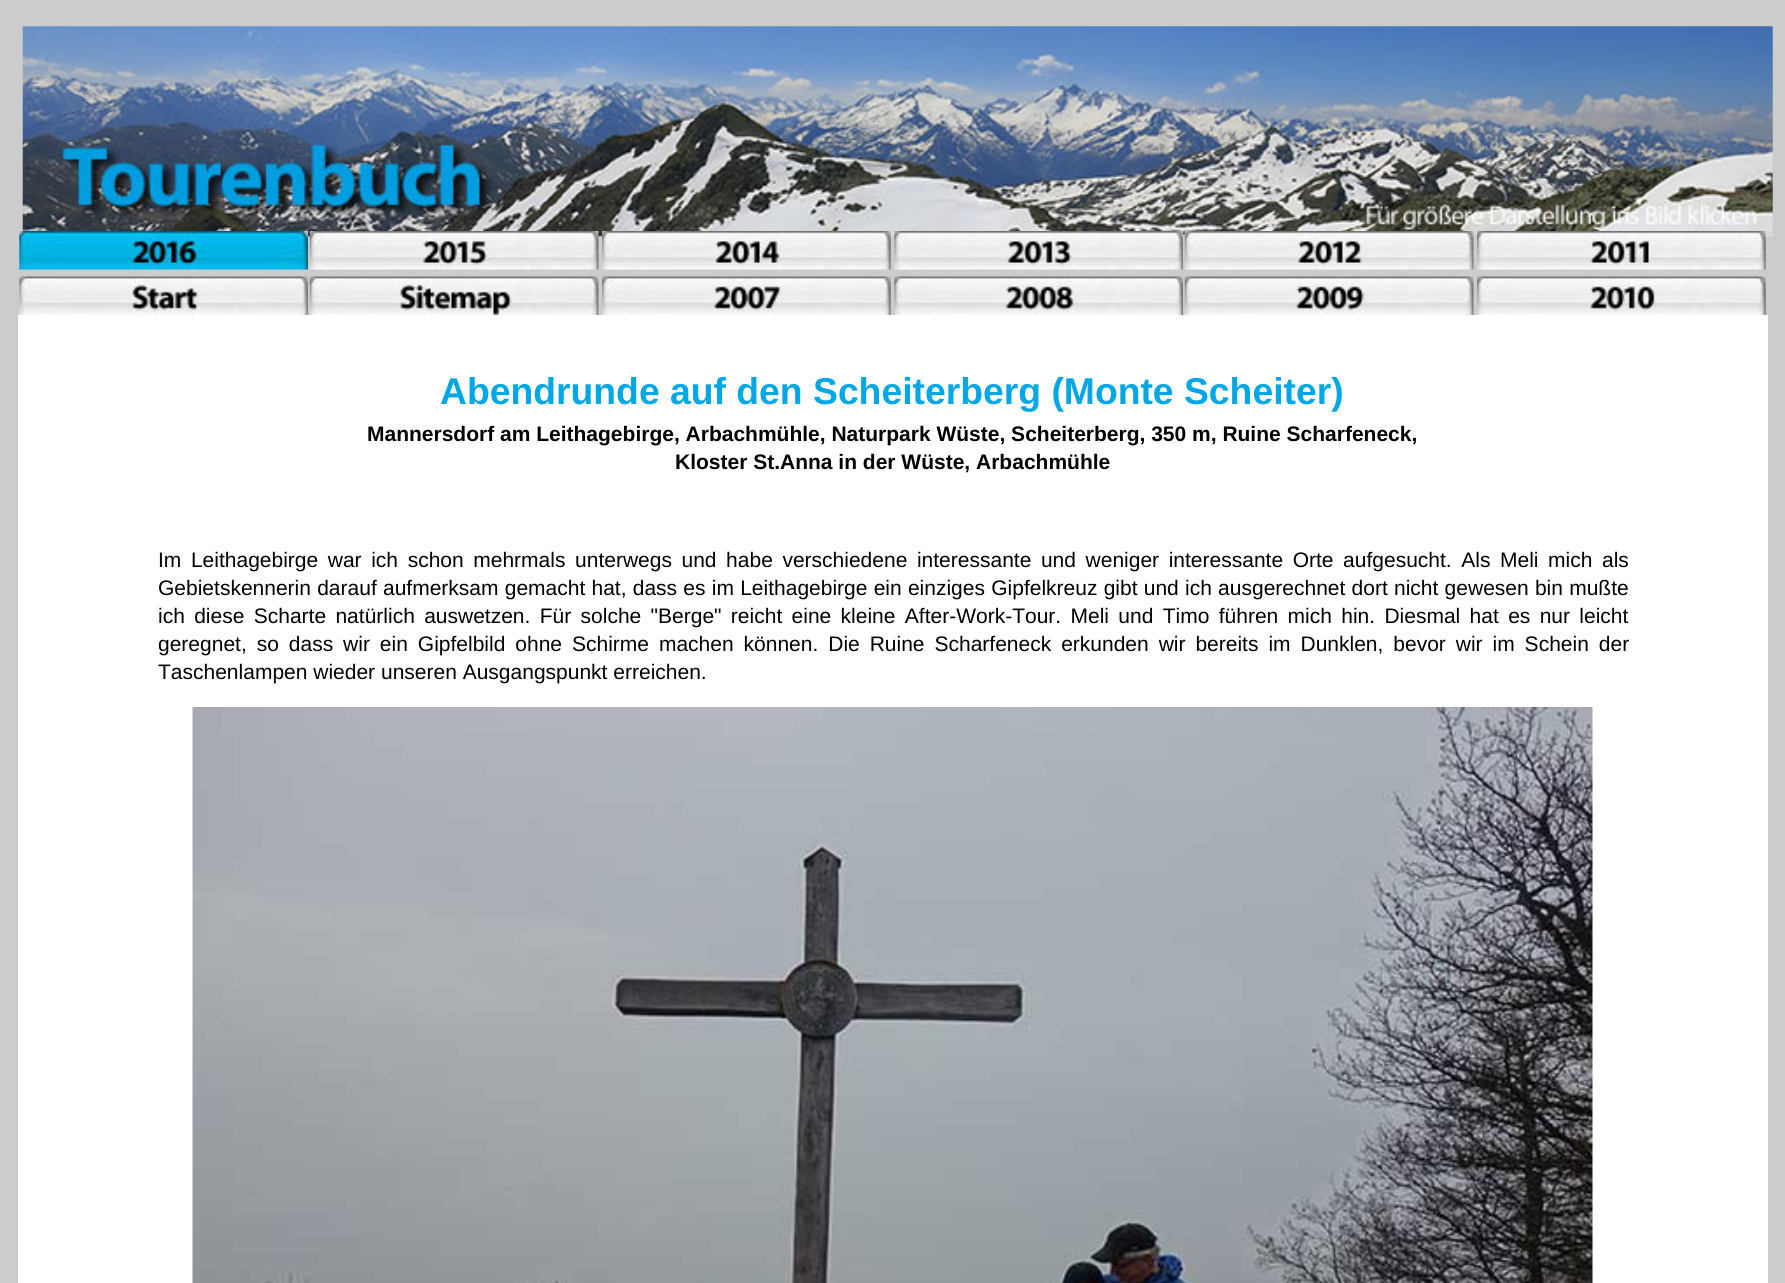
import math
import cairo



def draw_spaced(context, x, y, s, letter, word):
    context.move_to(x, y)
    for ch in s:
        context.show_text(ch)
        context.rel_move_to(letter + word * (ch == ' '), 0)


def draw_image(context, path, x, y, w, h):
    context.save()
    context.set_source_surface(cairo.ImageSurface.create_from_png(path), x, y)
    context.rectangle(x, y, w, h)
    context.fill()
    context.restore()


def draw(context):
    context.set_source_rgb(204 / 255, 204 / 255, 204 / 255)
    context.paint()
    draw_image(context, "images/1.png", 22, 26, 1751, 211)
    draw_image(context, "images/2.png", 19, 231, 289, 39)
    draw_image(context, "images/3.png", 309, 231, 290, 39)
    draw_image(context, "images/4.png", 602, 231, 289, 39)
    draw_image(context, "images/5.png", 894, 231, 289, 39)
    draw_image(context, "images/6.png", 1184, 231, 290, 39)
    draw_image(context, "images/7.png", 1477, 231, 289, 39)
    draw_image(context, "images/8.png", 19, 276, 289, 39)
    draw_image(context, "images/9.png", 309, 276, 290, 39)
    draw_image(context, "images/10.png", 602, 276, 289, 39)
    draw_image(context, "images/11.png", 894, 276, 289, 39)
    draw_image(context, "images/12.png", 1184, 276, 290, 39)
    draw_image(context, "images/13.png", 1477, 276, 289, 39)
    context.set_source_rgb(1, 1, 1)
    context.rectangle(18, 315, 1750, 968)
    context.fill()
    draw_image(context, "images/14.png", 192, 707, 1401, 576)
    context.select_font_face("Liberation Sans", cairo.FontSlant.NORMAL, cairo.FontWeight.BOLD)
    context.set_font_size(37.3)
    context.set_source_rgb(0, 167 / 255, 230 / 255)
    context.move_to(440, 404)
    context.show_text("Abendrunde auf den Scheiterberg (Monte Scheiter)")
    context.set_font_size(21)
    context.set_source_rgb(0, 0, 0)
    context.move_to(367, 441)
    context.show_text("Mannersdorf am Leithagebirge, Arbachmühle, Naturpark Wüste, Scheiterberg, 350 m, Ruine Scharfeneck,")
    context.move_to(675, 469)
    context.show_text("Kloster St.Anna in der Wüste, Arbachmühle")
    context.select_font_face("Liberation Sans")
    draw_spaced(context, 158, 567, "Im Leithagebirge war ich schon mehrmals unterwegs und habe verschiedene interessante und weniger interessante Orte aufgesucht. Als Meli mich als", 0, 3.75)
    draw_spaced(context, 158, 595, "Gebietskennerin darauf aufmerksam gemacht hat, dass es im Leithagebirge ein einziges Gipfelkreuz gibt und ich ausgerechnet dort nicht gewesen bin mußte", 0, 0.4)
    draw_spaced(context, 158, 623, "ich diese Scharte natürlich auswetzen. Für solche \"Berge\" reicht eine kleine After-Work-Tour. Meli und Timo führen mich hin. Diesmal hat es nur leicht", 0, 3.5)
    draw_spaced(context, 158, 651, "geregnet, so dass wir ein Gipfelbild ohne Schirme machen können. Die Ruine Scharfeneck erkunden wir bereits im Dunklen, bevor wir im Schein der", 0, 4.1)
    context.move_to(158, 679)
    context.show_text("Taschenlampen wieder unseren Ausgangspunkt erreichen.")


surface = cairo.ImageSurface(cairo.Format.RGB24, 1785, 1283)
context = cairo.Context(surface)
options = cairo.FontOptions()
options.set_hint_metrics(cairo.HintMetrics.OFF)
options.set_hint_style(cairo.HintStyle.NONE)
context.set_font_options(options)
context.set_miter_limit(4)
draw(context)
surface.write_to_png("out.png")
